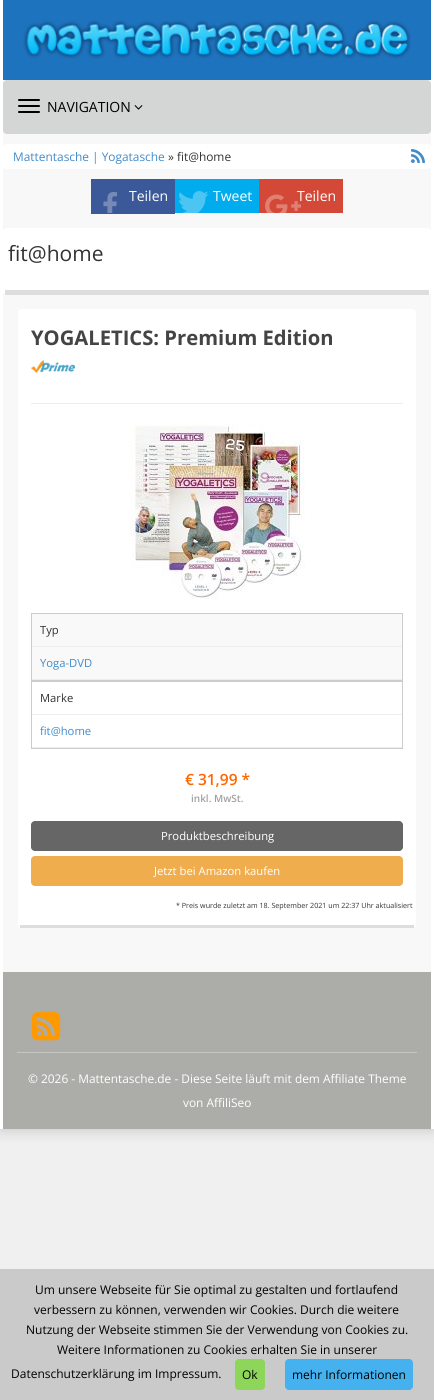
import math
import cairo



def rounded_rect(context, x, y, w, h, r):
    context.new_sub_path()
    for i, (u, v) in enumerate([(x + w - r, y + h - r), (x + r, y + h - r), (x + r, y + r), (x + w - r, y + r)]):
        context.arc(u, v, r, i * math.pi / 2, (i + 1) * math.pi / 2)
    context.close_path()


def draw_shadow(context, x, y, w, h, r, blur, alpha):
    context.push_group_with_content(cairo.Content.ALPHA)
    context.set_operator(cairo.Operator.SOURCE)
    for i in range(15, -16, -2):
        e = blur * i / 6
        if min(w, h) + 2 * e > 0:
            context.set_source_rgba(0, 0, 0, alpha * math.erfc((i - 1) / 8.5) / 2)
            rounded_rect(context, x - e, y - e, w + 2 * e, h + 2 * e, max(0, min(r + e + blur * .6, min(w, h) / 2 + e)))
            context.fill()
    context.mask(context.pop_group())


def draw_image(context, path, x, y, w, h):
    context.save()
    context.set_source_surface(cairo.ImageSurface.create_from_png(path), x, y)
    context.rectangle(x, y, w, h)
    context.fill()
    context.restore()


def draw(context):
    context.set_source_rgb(241 / 255, 240 / 255, 240 / 255)
    context.paint()
    context.set_source_rgb(193 / 255, 193 / 255, 193 / 255)
    draw_shadow(context, 0, 0, 434, 1129, 0, 7.5, 1)
    context.set_source_rgb(248 / 255, 248 / 255, 248 / 255)
    context.rectangle(3, 80, 428, 892)
    context.fill()
    context.set_source_rgb(1, 1, 1)
    context.rectangle(431, 0, 3, 1129)
    context.fill()
    context.rectangle(0, 0, 3, 1129)
    context.fill()
    context.set_source_rgb(30 / 255, 115 / 255, 190 / 255)
    context.rectangle(3, 0, 428, 80)
    context.fill()
    draw_image(context, "images/1.png", 23, 20, 388, 39)
    context.set_source_rgb(212 / 255, 214 / 255, 213 / 255)
    rounded_rect(context, 3, 80, 428, 54, 4)
    context.fill()
    context.set_source_rgb(0, 0, 0)
    rounded_rect(context, 18, 99, 22, 2, 1)
    context.fill()
    rounded_rect(context, 18, 105, 22, 2, 1)
    context.fill()
    rounded_rect(context, 18, 111, 22, 2, 1)
    context.fill()
    draw_image(context, "images/2.png", 134, 105, 9, 5)
    context.set_source_rgb(1, 1, 1)
    rounded_rect(context, 3, 144, 428, 25, 4)
    context.fill()
    draw_image(context, "images/3.png", 411, 149, 14, 14)
    context.set_source_rgb(59 / 255, 89 / 255, 153 / 255)
    context.rectangle(91, 179, 84, 35)
    context.fill()
    draw_image(context, "images/4.png", 103, 192, 14, 21)
    context.set_source_rgb(0, 172 / 255, 237 / 255)
    context.rectangle(175, 179, 84, 34)
    context.fill()
    draw_image(context, "images/5.png", 179, 191, 30, 22)
    context.set_source_rgb(211 / 255, 72 / 255, 54 / 255)
    context.rectangle(259, 179, 84, 34)
    context.fill()
    context.set_source_rgb(1, 1, 1)
    rounded_rect(context, 3, 228, 428, 67, 4)
    context.fill()
    context.set_source_rgb(221 / 255, 221 / 255, 221 / 255)
    context.rectangle(5, 290, 424, 5)
    context.fill()
    context.set_source_rgb(1, 1, 1)
    rounded_rect(context, 18, 309, 398, 619, 4)
    context.fill()
    context.set_source_rgb(221 / 255, 221 / 255, 221 / 255)
    context.rectangle(20, 925, 394, 3)
    context.fill()
    draw_image(context, "images/7.png", 31, 360, 44, 13)
    context.set_source_rgb(238 / 255, 238 / 255, 238 / 255)
    context.rectangle(31, 403, 372, 1)
    context.fill()
    draw_image(context, "images/8.png", 130, 424, 175, 175)
    context.set_source_rgb(249 / 255, 249 / 255, 249 / 255)
    context.rectangle(32, 614, 370, 65)
    context.fill()
    context.rectangle(31.5, 613.5, 371, 67)
    context.set_source_rgb(204 / 255, 204 / 255, 204 / 255)
    context.set_line_width(1)
    context.stroke()
    context.set_source_rgb(238 / 255, 238 / 255, 238 / 255)
    context.rectangle(32, 646, 370, 1)
    context.fill()
    context.rectangle(32, 679, 370, 1)
    context.fill()
    context.rectangle(31.5, 681.5, 371, 67)
    context.set_source_rgb(204 / 255, 204 / 255, 204 / 255)
    context.stroke()
    context.set_source_rgb(238 / 255, 238 / 255, 238 / 255)
    context.rectangle(32, 714, 370, 1)
    context.fill()
    context.rectangle(32, 747, 370, 1)
    context.fill()
    context.set_source_rgb(102 / 255, 102 / 255, 102 / 255)
    rounded_rect(context, 31.5, 821.5, 371, 29, 3.5)
    context.fill_preserve()
    context.stroke()
    context.set_source_rgb(240 / 255, 173 / 255, 78 / 255)
    rounded_rect(context, 31.5, 856.5, 371, 29, 3.5)
    context.fill_preserve()
    context.stroke()
    context.set_source_rgb(172 / 255, 172 / 255, 168 / 255)
    context.rectangle(3, 972, 428, 157)
    context.fill()
    draw_image(context, "images/9.png", 32, 1012, 29, 29)
    context.set_source_rgb(197 / 255, 197 / 255, 194 / 255)
    context.rectangle(17, 1052, 400, 1)
    context.fill()
    context.set_source_rgb(203 / 255, 202 / 255, 202 / 255)
    context.rectangle(0, 1269, 434, 131)
    context.fill()
    context.set_source_rgb(141 / 255, 214 / 255, 89 / 255)
    rounded_rect(context, 235, 1359, 30, 31, 4)
    context.fill()
    context.set_source_rgb(69 / 255, 177 / 255, 239 / 255)
    rounded_rect(context, 285, 1359, 128, 31, 4)
    context.fill()
    context.select_font_face("Open Sans")
    context.set_font_size(14)
    context.set_source_rgb(0, 0, 0)
    context.move_to(47, 112)
    context.show_text("NAVIGATION")
    context.set_font_size(11.9)
    context.set_source_rgb(66 / 255, 139 / 255, 202 / 255)
    context.move_to(13, 161)
    context.show_text("Mattentasche | Yogatasche")
    context.set_source_rgb(51 / 255, 51 / 255, 51 / 255)
    context.move_to(168, 161)
    context.show_text("» fit@home")
    context.set_font_size(14)
    context.set_source_rgb(1, 1, 1)
    context.move_to(129, 201)
    context.show_text("Teilen")
    context.move_to(213, 201)
    context.show_text("Tweet")
    context.move_to(297, 201)
    context.show_text("Teilen")
    draw_image(context, "images/6.png", 265, 194, 36, 19)
    context.set_font_size(21)
    context.set_source_rgb(51 / 255, 51 / 255, 51 / 255)
    context.move_to(8, 261)
    context.show_text("fit@home")
    context.select_font_face("Open Sans", cairo.FontSlant.NORMAL, cairo.FontWeight.BOLD)
    context.set_font_size(20.2)
    context.set_source_rgb(68 / 255, 68 / 255, 68 / 255)
    context.move_to(31, 345)
    context.show_text("YOGALETICS: Premium Edition")
    context.select_font_face("Open Sans")
    context.set_font_size(11.25)
    context.set_source_rgb(51 / 255, 51 / 255, 51 / 255)
    context.move_to(40, 634)
    context.show_text("Typ")
    context.set_source_rgb(66 / 255, 139 / 255, 202 / 255)
    context.move_to(40, 667)
    context.show_text("Yoga-DVD")
    context.set_source_rgb(51 / 255, 51 / 255, 51 / 255)
    context.move_to(40, 702)
    context.show_text("Marke")
    context.set_source_rgb(66 / 255, 139 / 255, 202 / 255)
    context.move_to(40, 735)
    context.show_text("fit@home")
    context.select_font_face("Open Sans SemiBold")
    context.set_font_size(15.5)
    context.set_source_rgb(1, 102 / 255, 0)
    context.move_to(185, 785)
    context.show_text("€ 31,99 *")
    context.set_font_size(10)
    context.set_source_rgb(162 / 255, 161 / 255, 161 / 255)
    context.move_to(191, 802)
    context.show_text("inkl. MwSt.")
    context.select_font_face("Open Sans")
    context.set_font_size(11.25)
    context.set_source_rgb(1, 1, 1)
    context.move_to(161, 840)
    context.show_text("Produktbeschreibung")
    context.move_to(154, 875)
    context.show_text("Jetzt bei Amazon kaufen")
    context.set_font_size(7.15)
    context.set_source_rgb(51 / 255, 51 / 255, 51 / 255)
    context.move_to(176, 908)
    context.show_text("* Preis wurde zuletzt am 18. September 2021 um 22:37 Uhr aktualisiert")
    context.set_font_size(11.9)
    context.set_source_rgb(1, 1, 1)
    context.move_to(28, 1083)
    context.show_text("© 2026 - Mattentasche.de - Diese Seite läuft mit dem Affiliate Theme")
    context.move_to(183, 1107)
    context.show_text("von AffiliSeo")
    context.set_font_size(12)
    context.set_source_rgb(0, 0, 0)
    context.move_to(35, 1294)
    context.show_text("Um unsere Webseite für Sie optimal zu gestalten und fortlaufend")
    context.move_to(34, 1314)
    context.show_text("verbessern zu können, verwenden wir Cookies. Durch die weitere")
    context.move_to(26, 1334)
    context.show_text("Nutzung der Webseite stimmen Sie der Verwendung von Cookies zu.")
    context.move_to(57, 1354)
    context.show_text("Weitere Informationen zu Cookies erhalten Sie in unserer")
    context.move_to(11, 1378)
    context.show_text("Datenschutzerklärung im Impressum.")
    context.move_to(242, 1379)
    context.show_text("Ok")
    context.move_to(292, 1379)
    context.show_text("mehr Informationen")


surface = cairo.ImageSurface(cairo.Format.RGB24, 434, 1400)
context = cairo.Context(surface)
options = cairo.FontOptions()
options.set_hint_metrics(cairo.HintMetrics.OFF)
options.set_hint_style(cairo.HintStyle.NONE)
context.set_font_options(options)
context.set_miter_limit(4)
draw(context)
surface.write_to_png("out.png")
